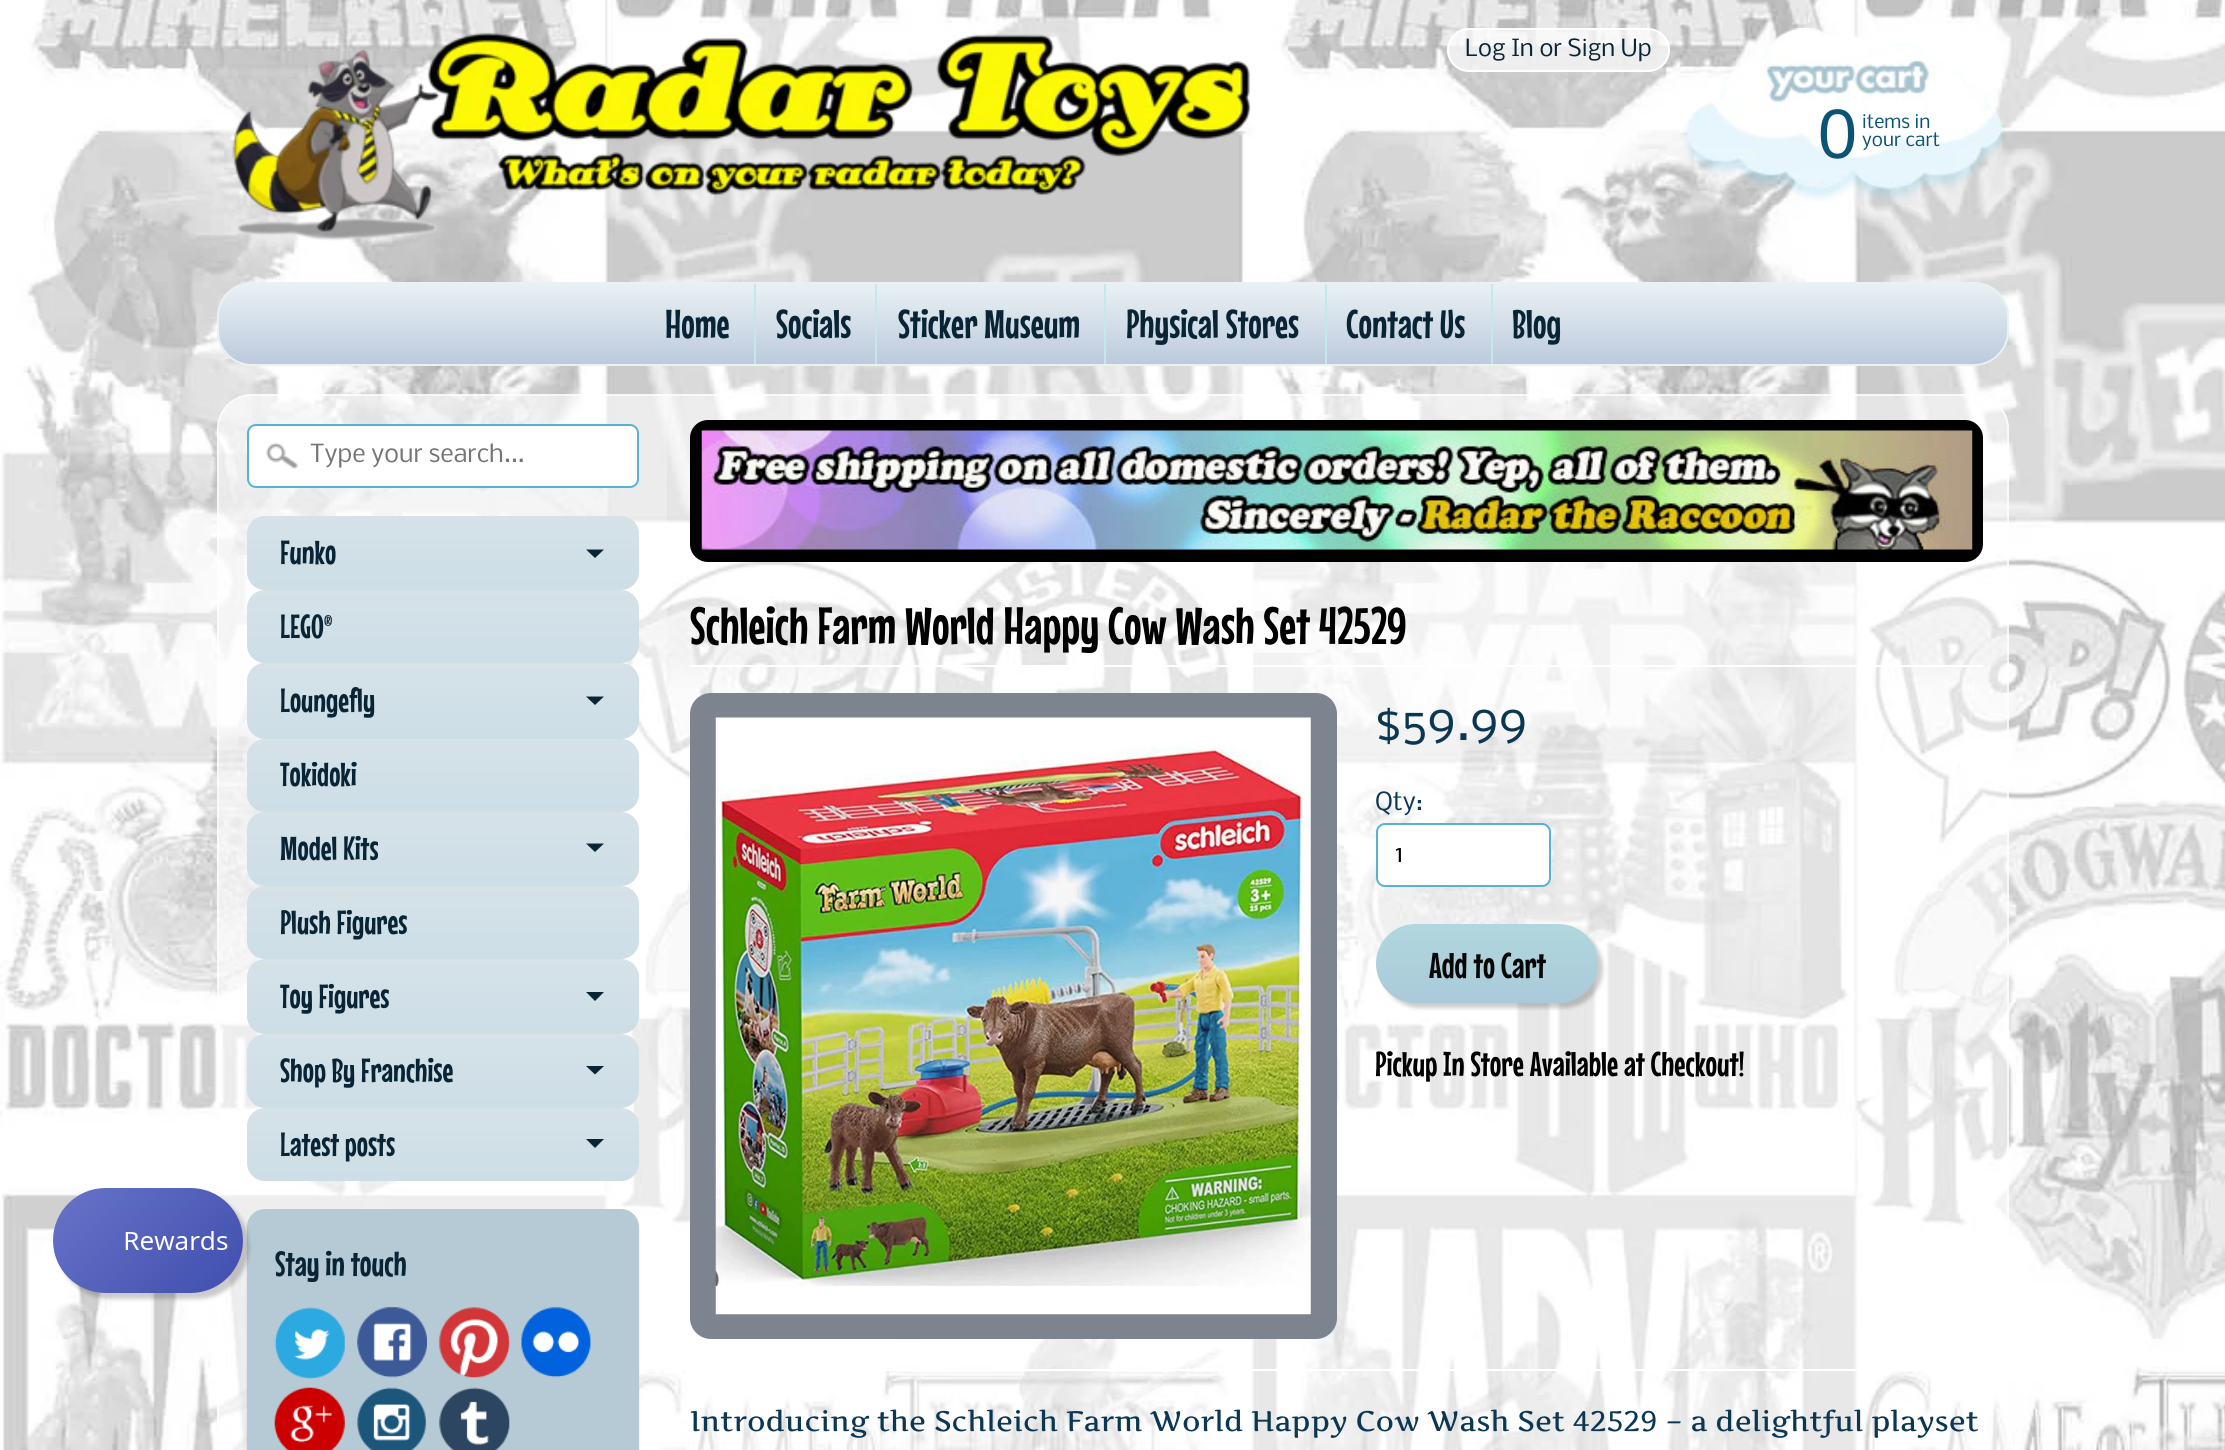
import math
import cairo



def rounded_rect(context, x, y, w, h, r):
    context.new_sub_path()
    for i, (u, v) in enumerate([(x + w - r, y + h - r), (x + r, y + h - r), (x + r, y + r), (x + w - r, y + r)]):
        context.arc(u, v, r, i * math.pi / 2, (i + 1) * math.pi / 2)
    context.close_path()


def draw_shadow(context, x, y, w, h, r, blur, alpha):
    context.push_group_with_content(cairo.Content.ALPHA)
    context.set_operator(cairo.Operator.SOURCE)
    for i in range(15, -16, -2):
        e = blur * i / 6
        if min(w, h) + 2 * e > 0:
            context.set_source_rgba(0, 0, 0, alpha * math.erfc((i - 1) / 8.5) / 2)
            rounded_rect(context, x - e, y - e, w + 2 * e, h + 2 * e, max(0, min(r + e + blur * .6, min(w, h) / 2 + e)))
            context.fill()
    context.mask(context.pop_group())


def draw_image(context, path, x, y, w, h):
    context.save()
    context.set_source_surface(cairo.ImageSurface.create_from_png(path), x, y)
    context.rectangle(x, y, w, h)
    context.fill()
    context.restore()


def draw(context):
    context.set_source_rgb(1, 1, 1)
    context.paint()
    draw_image(context, "images/1.png", 0, 0, 2225, 1450)
    context.set_source_rgba(1, 1, 1, 0.5)
    rounded_rect(context, 217, 394, 1792, 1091, 35)
    context.fill()
    rounded_rect(context, 218, 395, 1790, 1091, 34)
    context.set_source_rgba(1, 1, 1, 0.7)
    context.stroke()
    context.set_source_rgba(1, 1, 1, 0.25)
    context.new_path()
    context.move_to(252, 396)
    context.line_to(667, 396)
    context.line_to(667, 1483)
    context.line_to(219, 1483)
    context.line_to(219, 429)
    context.curve_to(219, 411, 234, 396, 252, 396)
    context.close_path()
    context.fill()
    context.set_source_rgb(0, 0, 0)
    draw_shadow(context, 247, 1211, 392, 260, 18, 1, 0.1)
    context.set_source_rgb(182 / 255, 202 / 255, 214 / 255)
    rounded_rect(context, 247, 1209, 392, 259, 18)
    context.fill()
    context.set_source_rgb(0, 0, 0)
    draw_shadow(context, 58, 1194, 191, 105, 52.5, 2, 0.2)
    gradient = cairo.LinearGradient(74, 1167, 222, 1315)
    gradient.add_color_stop_rgba(0, 103 / 255, 116 / 255, 200 / 255, 1)
    gradient.add_color_stop_rgba(1, 63 / 255, 78 / 255, 174 / 255, 1)
    context.set_source(gradient)
    rounded_rect(context, 53, 1188, 190, 105, 52.5)
    context.fill()
    draw_image(context, "images/2.png", 125, 1231, 103, 19)
    draw_image(context, "images/3.png", 232, 32, 1019, 209)
    context.set_source_rgba(1, 1, 1, 0.7)
    rounded_rect(context, 1448, 29, 221, 42, 21)
    context.fill_preserve()
    context.set_source_rgb(1, 1, 1)
    context.stroke()
    draw_image(context, "images/4.png", 1682, 28, 324, 174)
    context.save()
    rounded_rect(context, 217, 282, 1792, 84, 35)
    context.clip()
    gradient = cairo.LinearGradient(1113, 283, 1113, 364)
    gradient.add_color_stop_rgba(0, 233 / 255, 242 / 255, 242 / 255, 1)
    gradient.add_color_stop_rgba(1, 189 / 255, 202 / 255, 222 / 255, 1)
    context.set_source(gradient)
    context.rectangle(217, 284, 1792, 80)
    context.fill()
    context.restore()
    rounded_rect(context, 218, 283, 1790, 82, 34)
    context.set_source_rgb(233 / 255, 242 / 255, 242 / 255)
    context.stroke()
    context.set_source_rgb(195 / 255, 231 / 255, 234 / 255)
    context.rectangle(754, 284, 2, 80)
    context.fill()
    context.rectangle(875, 284, 2, 80)
    context.fill()
    context.rectangle(1104, 284, 2, 80)
    context.fill()
    context.rectangle(1325, 284, 2, 80)
    context.fill()
    context.rectangle(1491, 284, 2, 80)
    context.fill()
    context.set_source_rgb(1, 1, 1)
    rounded_rect(context, 247, 424, 392, 64, 9)
    context.fill()
    draw_image(context, "images/5.png", 266, 442, 32, 27)
    rounded_rect(context, 248, 425, 390, 62, 8)
    context.set_source_rgb(87 / 255, 177 / 255, 207 / 255)
    context.stroke()
    gradient = cairo.LinearGradient(443, 516, 443, 590)
    gradient.add_color_stop_rgba(0, 213 / 255, 226 / 255, 232 / 255, 1)
    gradient.add_color_stop_rgba(1, 205 / 255, 222 / 255, 231 / 255, 1)
    context.set_source(gradient)
    rounded_rect(context, 247, 516, 392, 74, 18)
    context.fill()
    context.set_source_rgb(8 / 255, 36 / 255, 53 / 255)
    context.new_path()
    context.move_to(586, 549.5)
    context.line_to(604, 549.5)
    context.line_to(595, 558)
    context.close_path()
    context.fill()
    gradient = cairo.LinearGradient(443, 590, 443, 663)
    gradient.add_color_stop_rgba(0, 213 / 255, 226 / 255, 232 / 255, 1)
    gradient.add_color_stop_rgba(1, 205 / 255, 222 / 255, 231 / 255, 1)
    context.set_source(gradient)
    rounded_rect(context, 247, 590, 392, 73, 18)
    context.fill()
    gradient = cairo.LinearGradient(443, 663, 443, 739)
    gradient.add_color_stop_rgba(0, 213 / 255, 226 / 255, 232 / 255, 1)
    gradient.add_color_stop_rgba(1, 205 / 255, 222 / 255, 231 / 255, 1)
    context.set_source(gradient)
    rounded_rect(context, 247, 663, 392, 76, 18)
    context.fill()
    context.set_source_rgb(8 / 255, 36 / 255, 53 / 255)
    context.new_path()
    context.move_to(586, 696.5)
    context.line_to(604, 696.5)
    context.line_to(595, 705)
    context.close_path()
    context.fill()
    gradient = cairo.LinearGradient(443, 739, 443, 812)
    gradient.add_color_stop_rgba(0, 213 / 255, 226 / 255, 232 / 255, 1)
    gradient.add_color_stop_rgba(1, 205 / 255, 222 / 255, 231 / 255, 1)
    context.set_source(gradient)
    rounded_rect(context, 247, 739, 392, 73, 18)
    context.fill()
    gradient = cairo.LinearGradient(443, 812, 443, 886)
    gradient.add_color_stop_rgba(0, 213 / 255, 226 / 255, 232 / 255, 1)
    gradient.add_color_stop_rgba(1, 205 / 255, 222 / 255, 231 / 255, 1)
    context.set_source(gradient)
    rounded_rect(context, 247, 812, 392, 74, 18)
    context.fill()
    context.set_source_rgb(8 / 255, 36 / 255, 53 / 255)
    context.new_path()
    context.move_to(586, 843.5)
    context.line_to(604, 843.5)
    context.line_to(595, 852)
    context.close_path()
    context.fill()
    gradient = cairo.LinearGradient(443, 886, 443, 959)
    gradient.add_color_stop_rgba(0, 213 / 255, 226 / 255, 232 / 255, 1)
    gradient.add_color_stop_rgba(1, 205 / 255, 222 / 255, 231 / 255, 1)
    context.set_source(gradient)
    rounded_rect(context, 247, 886, 392, 73, 18)
    context.fill()
    gradient = cairo.LinearGradient(443, 959, 443, 1034)
    gradient.add_color_stop_rgba(0, 213 / 255, 226 / 255, 232 / 255, 1)
    gradient.add_color_stop_rgba(1, 205 / 255, 222 / 255, 231 / 255, 1)
    context.set_source(gradient)
    rounded_rect(context, 247, 959, 392, 75, 18)
    context.fill()
    context.set_source_rgb(8 / 255, 36 / 255, 53 / 255)
    context.new_path()
    context.move_to(586, 992)
    context.line_to(604, 992)
    context.line_to(595, 1001)
    context.close_path()
    context.fill()
    gradient = cairo.LinearGradient(443, 1034, 443, 1108)
    gradient.add_color_stop_rgba(0, 213 / 255, 226 / 255, 232 / 255, 1)
    gradient.add_color_stop_rgba(1, 205 / 255, 222 / 255, 231 / 255, 1)
    context.set_source(gradient)
    rounded_rect(context, 247, 1034, 392, 74, 18)
    context.fill()
    context.set_source_rgb(8 / 255, 36 / 255, 53 / 255)
    context.new_path()
    context.move_to(586, 1066)
    context.line_to(604, 1066)
    context.line_to(595, 1074.5)
    context.close_path()
    context.fill()
    gradient = cairo.LinearGradient(443, 1108, 443, 1181)
    gradient.add_color_stop_rgba(0, 213 / 255, 226 / 255, 232 / 255, 1)
    gradient.add_color_stop_rgba(1, 205 / 255, 222 / 255, 231 / 255, 1)
    context.set_source(gradient)
    rounded_rect(context, 247, 1108, 392, 73, 18)
    context.fill()
    context.set_source_rgb(8 / 255, 36 / 255, 53 / 255)
    context.new_path()
    context.move_to(586, 1139)
    context.line_to(604, 1139)
    context.line_to(595, 1148)
    context.close_path()
    context.fill()
    draw_image(context, "images/6.png", 274, 1307, 71, 72)
    draw_image(context, "images/7.png", 357, 1307, 70, 71)
    draw_image(context, "images/8.png", 439, 1307, 71, 71)
    draw_image(context, "images/9.png", 521, 1307, 70, 71)
    draw_image(context, "images/10.png", 274, 1387, 71, 63)
    draw_image(context, "images/11.png", 357, 1387, 69, 63)
    draw_image(context, "images/12.png", 439, 1387, 71, 63)
    context.set_source_rgb(0, 0, 0)
    rounded_rect(context, 690, 420, 1293, 142, 18)
    context.fill()
    draw_image(context, "images/13.png", 701, 430, 1272, 120)
    context.set_source_rgb(1, 1, 1)
    context.rectangle(690, 665, 1293, 2)
    context.fill()
    context.set_source_rgb(126 / 255, 132 / 255, 143 / 255)
    rounded_rect(context, 691, 694, 645, 644, 20)
    context.fill_preserve()
    context.stroke()
    draw_image(context, "images/14.png", 715, 717, 596, 598)
    context.set_source_rgb(1, 1, 1)
    rounded_rect(context, 1377, 824, 173, 62, 8)
    context.fill_preserve()
    context.set_source_rgb(87 / 255, 177 / 255, 207 / 255)
    context.stroke()
    context.set_source_rgb(0, 0, 0)
    draw_shadow(context, 1381, 929, 222, 79, 39.5, 2, 0.2)
    gradient = cairo.LinearGradient(1487, 924, 1487, 1003)
    gradient.add_color_stop_rgba(0, 177 / 255, 215 / 255, 222 / 255, 1)
    gradient.add_color_stop_rgba(1, 170 / 255, 202 / 255, 217 / 255, 1)
    context.set_source(gradient)
    rounded_rect(context, 1376, 924, 222, 79, 39.5)
    context.fill()
    context.set_source_rgb(1, 1, 1)
    context.rectangle(885, 1369, 1028, 2)
    context.fill()
    context.select_font_face("Nobile")
    context.set_font_size(22.5)
    context.set_source_rgb(8 / 255, 36 / 255, 53 / 255)
    context.move_to(1465, 56)
    context.show_text("Log In or Sign Up")
    context.select_font_face("Liberation Sans")
    context.set_font_size(70)
    context.set_source_rgb(11 / 255, 84 / 255, 117 / 255)
    context.move_to(1818, 158)
    context.show_text("0")
    context.select_font_face("Nobile")
    context.set_font_size(18)
    context.move_to(1862, 128)
    context.show_text("items in")
    context.move_to(1862, 146)
    context.show_text("your cart")
    context.select_font_face("Mouse Memoirs")
    context.set_font_size(40.25)
    context.set_source_rgb(8 / 255, 36 / 255, 53 / 255)
    context.move_to(665, 338)
    context.show_text("Home")
    context.move_to(776, 338)
    context.show_text("Socials")
    context.move_to(898, 338)
    context.show_text("Sticker Museum")
    context.move_to(1126, 338)
    context.show_text("Physical Stores")
    context.move_to(1346, 338)
    context.show_text("Contact Us")
    context.move_to(1512, 338)
    context.show_text("Blog")
    context.select_font_face("Nobile")
    context.set_font_size(23.75)
    context.set_source_rgb(117 / 255, 117 / 255, 117 / 255)
    context.move_to(310, 462)
    context.show_text("Type your search...")
    context.select_font_face("Mouse Memoirs")
    context.set_font_size(33.5)
    context.set_source_rgb(8 / 255, 36 / 255, 53 / 255)
    context.move_to(280, 564)
    context.show_text("Funko")
    context.move_to(280, 638)
    context.show_text("LEGO®")
    context.move_to(280, 712)
    context.show_text("Loungefly")
    context.move_to(280, 786)
    context.show_text("Tokidoki")
    context.move_to(280, 860)
    context.show_text("Model Kits")
    context.move_to(280, 934)
    context.show_text("Plush Figures")
    context.move_to(280, 1008)
    context.show_text("Toy Figures")
    context.move_to(280, 1082)
    context.show_text("Shop By Franchise")
    context.move_to(280, 1156)
    context.show_text("Latest posts")
    context.set_font_size(35)
    context.move_to(275, 1276)
    context.show_text("Stay in touch")
    context.set_font_size(52.4)
    context.set_source_rgb(0, 0, 0)
    context.move_to(690, 644)
    context.show_text("Schleich Farm World Happy Cow Wash Set 42529")
    context.select_font_face("Nobile")
    context.set_font_size(47.5)
    context.set_source_rgb(12 / 255, 55 / 255, 82 / 255)
    context.move_to(1375, 740)
    context.show_text("$59.99")
    context.set_font_size(23.75)
    context.move_to(1375, 810)
    context.show_text("Qty:")
    context.set_source_rgb(0, 0, 0)
    context.move_to(1395, 862)
    context.show_text("1")
    context.select_font_face("Mouse Memoirs")
    context.set_font_size(36)
    context.set_source_rgb(8 / 255, 7 / 255, 7 / 255)
    context.move_to(1429, 978)
    context.show_text("Add to Cart")
    context.set_font_size(34.5)
    context.set_source_rgb(0, 0, 0)
    context.move_to(1375, 1076)
    context.show_text("Pickup In Store Available at Checkout!")
    context.select_font_face("Artifika")
    context.set_font_size(28.55)
    context.set_source_rgb(12 / 255, 55 / 255, 82 / 255)
    context.move_to(690, 1431)
    context.show_text("Introducing the Schleich Farm World Happy Cow Wash Set 42529 – a delightful playset")


surface = cairo.ImageSurface(cairo.Format.RGB24, 2225, 1450)
context = cairo.Context(surface)
options = cairo.FontOptions()
options.set_hint_metrics(cairo.HintMetrics.OFF)
options.set_hint_style(cairo.HintStyle.NONE)
context.set_font_options(options)
context.set_miter_limit(4)
draw(context)
surface.write_to_png("out.png")
